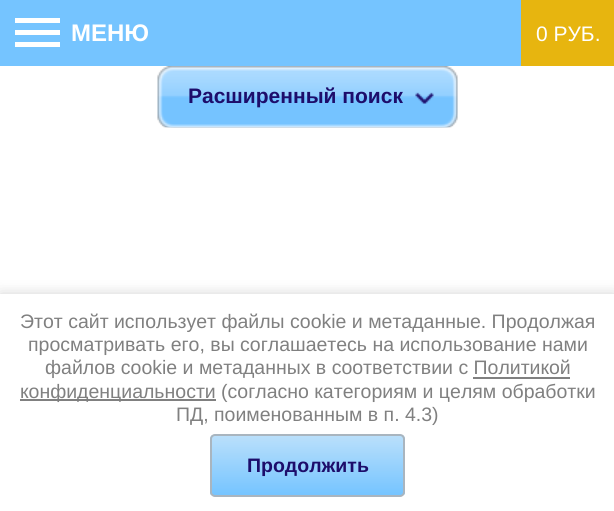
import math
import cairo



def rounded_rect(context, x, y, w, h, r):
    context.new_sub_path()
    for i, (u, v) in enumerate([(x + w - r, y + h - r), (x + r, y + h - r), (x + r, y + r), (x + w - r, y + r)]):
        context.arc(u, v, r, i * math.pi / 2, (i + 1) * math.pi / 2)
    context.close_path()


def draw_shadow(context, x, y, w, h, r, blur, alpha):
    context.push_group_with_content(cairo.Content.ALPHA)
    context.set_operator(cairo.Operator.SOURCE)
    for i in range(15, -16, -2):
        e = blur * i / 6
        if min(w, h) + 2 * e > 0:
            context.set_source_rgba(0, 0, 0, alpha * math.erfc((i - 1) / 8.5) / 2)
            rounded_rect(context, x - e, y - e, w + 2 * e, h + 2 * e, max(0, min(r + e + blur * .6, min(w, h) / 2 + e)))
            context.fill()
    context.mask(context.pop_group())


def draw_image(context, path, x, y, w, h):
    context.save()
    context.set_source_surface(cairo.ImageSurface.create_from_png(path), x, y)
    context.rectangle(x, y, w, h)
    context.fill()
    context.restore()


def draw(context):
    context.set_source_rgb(1, 1, 1)
    context.paint()
    context.set_source_rgb(117 / 255, 196 / 255, 1)
    context.rectangle(0, 0, 521, 66)
    context.fill()
    context.set_source_rgb(1, 1, 1)
    context.rectangle(15, 30, 45, 5)
    context.fill()
    context.rectangle(15, 18, 45, 5)
    context.fill()
    context.rectangle(15, 42, 45, 5)
    context.fill()
    context.set_source_rgb(231 / 255, 181 / 255, 15 / 255)
    context.rectangle(521, 0, 93, 66)
    context.fill()
    context.set_source_rgb(238 / 255, 238 / 255, 238 / 255)
    rounded_rect(context, 158, 66, 300, 62, 18)
    context.fill()
    draw_image(context, "images/1.png", 157, 66, 301, 62)
    draw_image(context, "images/2.png", 415, 92, 19, 12)
    context.set_source_rgb(0, 0, 0)
    draw_shadow(context, 0, 296, 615, 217, 0, 7.5, 0.23)
    context.set_source_rgb(1, 1, 1)
    context.rectangle(0, 294, 614, 217)
    context.fill()
    context.set_source_rgb(128 / 255, 128 / 255, 128 / 255)
    context.rectangle(473, 377, 97, 2)
    context.fill()
    context.rectangle(20, 399, 196, 2)
    context.fill()
    context.save()
    rounded_rect(context, 210, 434, 195, 63, 5)
    context.clip()
    gradient = cairo.LinearGradient(308, 435, 308, 495)
    gradient.add_color_stop_rgba(0, 187 / 255, 224 / 255, 251 / 255, 1)
    gradient.add_color_stop_rgba(1, 117 / 255, 196 / 255, 1, 1)
    context.set_source(gradient)
    context.rectangle(210, 435, 195, 60)
    context.fill()
    context.restore()
    rounded_rect(context, 211, 435, 193, 61, 4)
    context.set_source_rgb(169 / 255, 181 / 255, 191 / 255)
    context.stroke()
    context.select_font_face("Liberation Sans", cairo.FontSlant.NORMAL, cairo.FontWeight.BOLD)
    context.set_font_size(24)
    context.set_source_rgb(1, 1, 1)
    context.move_to(71, 41)
    context.show_text("МЕНЮ")
    context.select_font_face("Liberation Sans")
    context.set_font_size(21)
    context.move_to(536, 41)
    context.show_text("0 РУБ.")
    context.select_font_face("Liberation Sans", cairo.FontSlant.NORMAL, cairo.FontWeight.BOLD)
    context.set_source_rgb(29 / 255, 13 / 255, 107 / 255)
    context.move_to(188, 103)
    context.show_text("Расширенный поиск")
    context.select_font_face("Liberation Sans")
    context.set_font_size(19.5)
    context.set_source_rgb(128 / 255, 128 / 255, 128 / 255)
    context.move_to(20, 328)
    context.show_text("Этот сайт использует файлы cookie и метаданные. Продолжая")
    context.move_to(28, 351)
    context.show_text("просматривать его, вы соглашаетесь на использование нами")
    context.move_to(45, 374)
    context.show_text("файлов cookie и метаданных в соответствии с Политикой")
    context.move_to(20, 398)
    context.show_text("конфиденциальности (согласно категориям и целям обработки")
    context.move_to(176, 421)
    context.show_text("ПД, поименованным в п. 4.3)")
    context.select_font_face("Liberation Sans", cairo.FontSlant.NORMAL, cairo.FontWeight.BOLD)
    context.set_source_rgb(29 / 255, 13 / 255, 107 / 255)
    context.move_to(247, 472)
    context.show_text("Продолжить")


surface = cairo.ImageSurface(cairo.Format.RGB24, 614, 511)
context = cairo.Context(surface)
options = cairo.FontOptions()
options.set_hint_metrics(cairo.HintMetrics.OFF)
options.set_hint_style(cairo.HintStyle.NONE)
context.set_font_options(options)
context.set_miter_limit(4)
draw(context)
surface.write_to_png("out.png")
